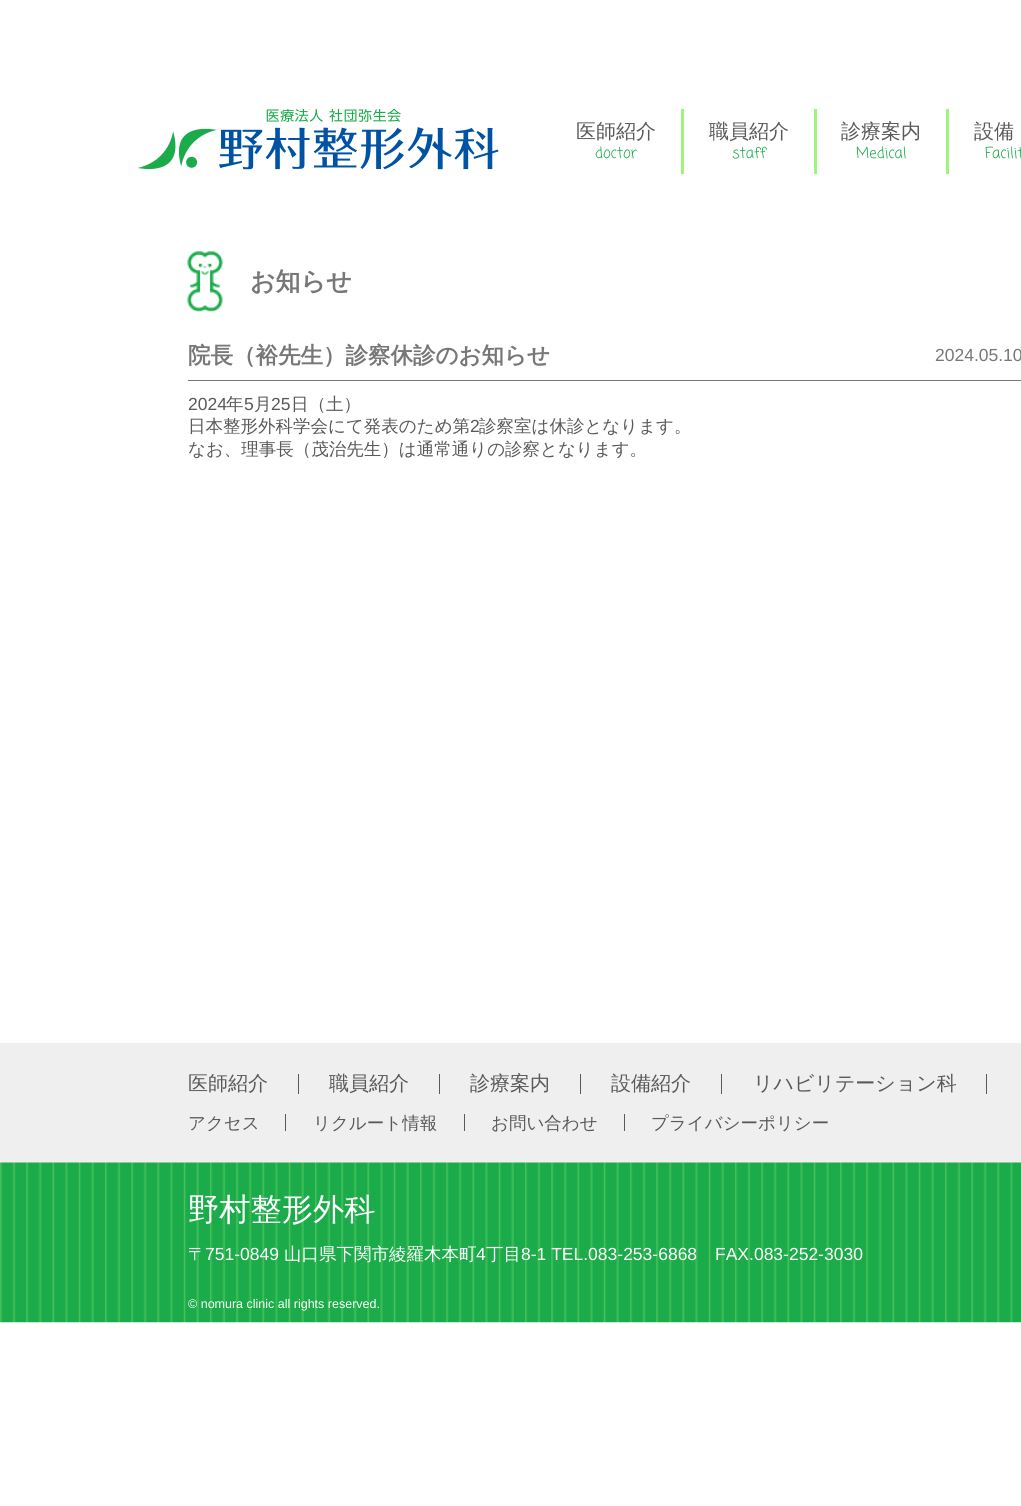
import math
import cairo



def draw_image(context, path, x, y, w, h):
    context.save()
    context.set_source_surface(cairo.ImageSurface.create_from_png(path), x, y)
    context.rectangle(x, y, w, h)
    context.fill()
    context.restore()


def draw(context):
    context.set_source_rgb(1, 1, 1)
    context.paint()
    draw_image(context, "images/1.png", 138, 109, 361, 61)
    context.set_source_rgb(159 / 255, 244 / 255, 126 / 255)
    context.rectangle(681, 109, 3, 65)
    context.fill()
    context.rectangle(814, 109, 3, 65)
    context.fill()
    context.rectangle(946, 109, 3, 65)
    context.fill()
    draw_image(context, "images/2.png", 187, 251, 36, 61)
    context.set_source_rgb(119 / 255, 119 / 255, 119 / 255)
    context.rectangle(188, 380, 833, 1)
    context.fill()
    context.set_source_rgb(239 / 255, 239 / 255, 239 / 255)
    context.rectangle(0, 1043, 1021, 120)
    context.fill()
    context.set_source_rgb(89 / 255, 89 / 255, 89 / 255)
    context.rectangle(298, 1074, 1, 20)
    context.fill()
    context.rectangle(439, 1074, 1, 20)
    context.fill()
    context.rectangle(580, 1074, 1, 20)
    context.fill()
    context.rectangle(721, 1074, 1, 20)
    context.fill()
    context.rectangle(986, 1074, 1, 20)
    context.fill()
    context.rectangle(285, 1114, 1, 17)
    context.fill()
    context.rectangle(464, 1114, 1, 17)
    context.fill()
    context.rectangle(624, 1114, 1, 17)
    context.fill()
    draw_image(context, "images/3.png", 0, 1162, 1021, 161)
    context.select_font_face("WenQuanYi Zen Hei Medium")
    context.set_font_size(20)
    context.move_to(576, 138)
    context.show_text("医師紹介")
    context.select_font_face("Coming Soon")
    context.set_font_size(15)
    context.set_source_rgb(26 / 255, 170 / 255, 74 / 255)
    context.move_to(595, 158)
    context.show_text("doctor")
    context.select_font_face("WenQuanYi Zen Hei Medium")
    context.set_font_size(20)
    context.set_source_rgb(89 / 255, 89 / 255, 89 / 255)
    context.move_to(709, 138)
    context.show_text("職員紹介")
    context.select_font_face("Coming Soon")
    context.set_font_size(15)
    context.set_source_rgb(26 / 255, 170 / 255, 74 / 255)
    context.move_to(732, 158)
    context.show_text("staff")
    context.select_font_face("WenQuanYi Zen Hei Medium")
    context.set_font_size(20)
    context.set_source_rgb(89 / 255, 89 / 255, 89 / 255)
    context.move_to(841, 138)
    context.show_text("診療案内")
    context.select_font_face("Coming Soon")
    context.set_font_size(15)
    context.set_source_rgb(26 / 255, 170 / 255, 74 / 255)
    context.move_to(856, 158)
    context.show_text("Medical")
    context.select_font_face("WenQuanYi Zen Hei Medium")
    context.set_font_size(20)
    context.set_source_rgb(89 / 255, 89 / 255, 89 / 255)
    context.move_to(974, 138)
    context.show_text("設備")
    context.select_font_face("Coming Soon")
    context.set_font_size(15)
    context.set_source_rgb(26 / 255, 170 / 255, 74 / 255)
    context.move_to(985, 158)
    context.show_text("Facilit")
    context.select_font_face("WenQuanYi Zen Hei", cairo.FontSlant.NORMAL, cairo.FontWeight.BOLD)
    context.set_font_size(25)
    context.set_source_rgb(119 / 255, 119 / 255, 119 / 255)
    context.move_to(250, 290)
    context.show_text("お知らせ")
    context.set_font_size(22.5)
    context.move_to(188, 363)
    context.show_text("院長（裕先生）診察休診のお知らせ")
    context.select_font_face("Liberation Sans")
    context.set_font_size(17.5)
    context.move_to(935, 361)
    context.show_text("2024.05.10")
    context.set_source_rgb(89 / 255, 89 / 255, 89 / 255)
    context.move_to(188, 410)
    context.show_text("2024")
    context.select_font_face("WenQuanYi Zen Hei Medium")
    context.move_to(226, 410)
    context.show_text("年")
    context.select_font_face("Liberation Sans")
    context.move_to(244, 410)
    context.show_text("5")
    context.select_font_face("WenQuanYi Zen Hei Medium")
    context.move_to(254, 410)
    context.show_text("月")
    context.select_font_face("Liberation Sans")
    context.move_to(271, 410)
    context.show_text("25")
    context.select_font_face("WenQuanYi Zen Hei Medium")
    context.move_to(291, 410)
    context.show_text("日（土）")
    context.move_to(188, 432)
    context.show_text("日本整形外科学会にて発表のため第")
    context.select_font_face("Liberation Sans")
    context.move_to(470, 432)
    context.show_text("2")
    context.select_font_face("WenQuanYi Zen Hei Medium")
    context.move_to(479, 432)
    context.show_text("診察室は休診となります。")
    context.move_to(188, 455)
    context.show_text("なお、理事長（茂治先生）は通常通りの診察となります。")
    context.set_font_size(20)
    context.move_to(188, 1090)
    context.show_text("医師紹介")
    context.move_to(329, 1090)
    context.show_text("職員紹介")
    context.move_to(470, 1090)
    context.show_text("診療案内")
    context.move_to(611, 1090)
    context.show_text("設備紹介")
    context.move_to(753, 1090)
    context.show_text("リハビリテーション科")
    context.set_font_size(17.5)
    context.move_to(188, 1129)
    context.show_text("アクセス")
    context.move_to(313, 1129)
    context.show_text("リクルート情報")
    context.move_to(491, 1129)
    context.show_text("お問い合わせ")
    context.move_to(651, 1129)
    context.show_text("プライバシーポリシー")
    context.set_font_size(31.25)
    context.set_source_rgb(1, 1, 1)
    context.move_to(188, 1220)
    context.show_text("野村整形外科")
    context.set_font_size(17.5)
    context.move_to(188, 1260)
    context.show_text("〒")
    context.select_font_face("Liberation Sans")
    context.move_to(205, 1260)
    context.show_text("751-0849")
    context.select_font_face("WenQuanYi Zen Hei Medium")
    context.move_to(284, 1260)
    context.show_text("山口県下関市綾羅木本町")
    context.select_font_face("Liberation Sans")
    context.move_to(476, 1260)
    context.show_text("4")
    context.select_font_face("WenQuanYi Zen Hei Medium")
    context.move_to(486, 1260)
    context.show_text("丁目")
    context.select_font_face("Liberation Sans")
    context.move_to(521, 1260)
    context.show_text("8-1 TEL.083-253-6868")
    context.move_to(715, 1260)
    context.show_text("FAX.083-252-3030")
    context.set_font_size(12.5)
    context.move_to(188, 1308)
    context.show_text("© nomura clinic all rights reserved.")


surface = cairo.ImageSurface(cairo.Format.RGB24, 1021, 1506)
context = cairo.Context(surface)
options = cairo.FontOptions()
options.set_hint_metrics(cairo.HintMetrics.OFF)
options.set_hint_style(cairo.HintStyle.NONE)
context.set_font_options(options)
context.set_miter_limit(4)
draw(context)
surface.write_to_png("out.png")
